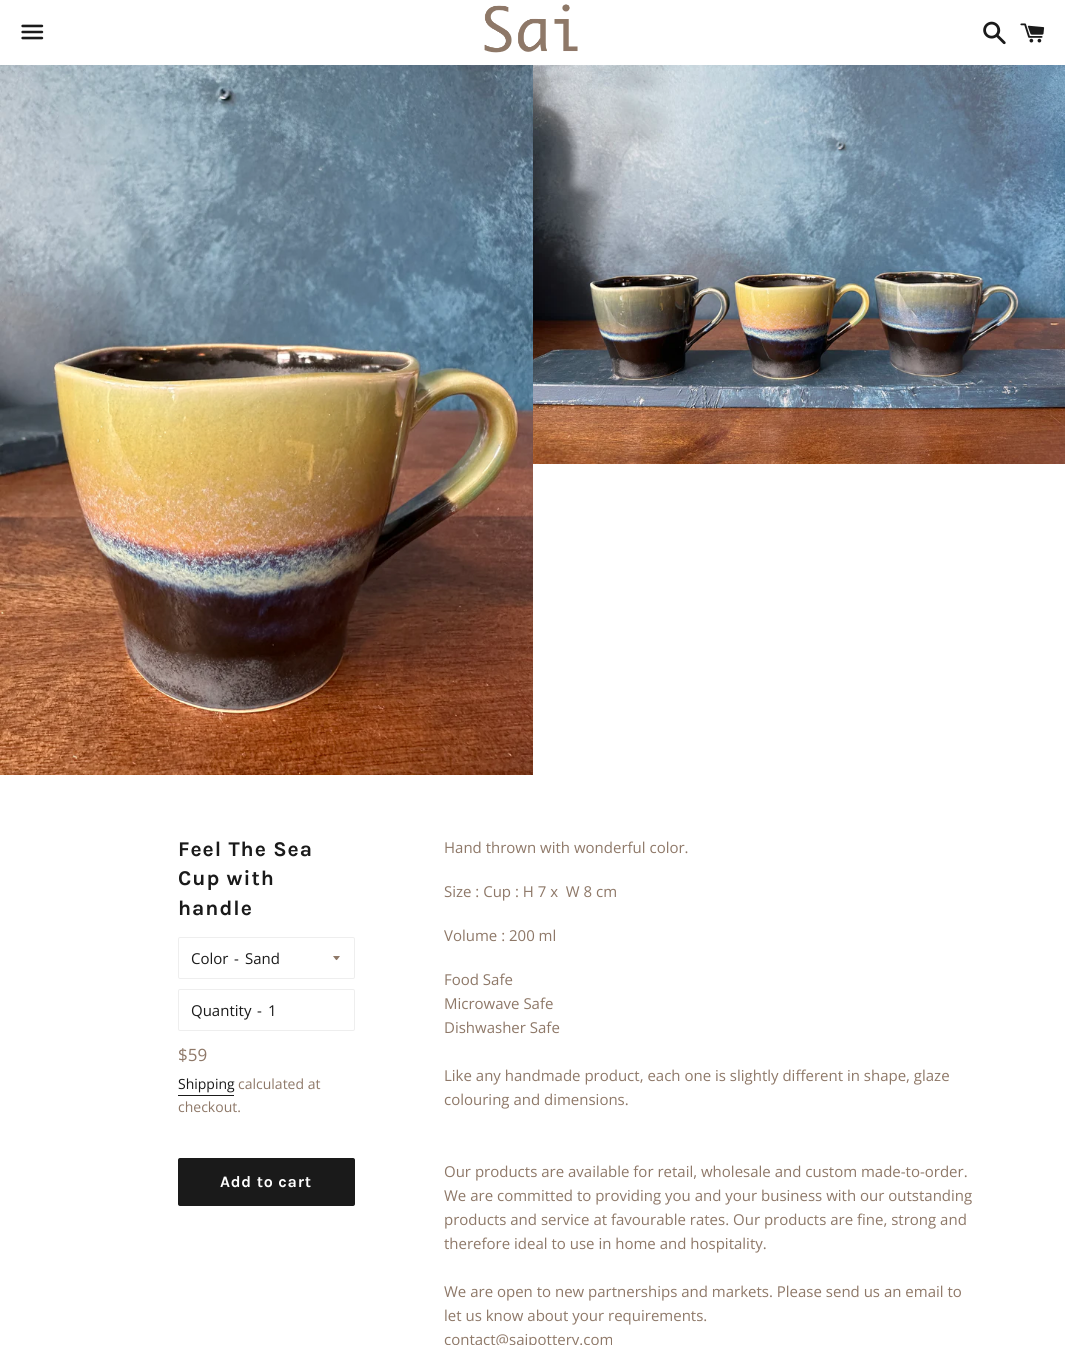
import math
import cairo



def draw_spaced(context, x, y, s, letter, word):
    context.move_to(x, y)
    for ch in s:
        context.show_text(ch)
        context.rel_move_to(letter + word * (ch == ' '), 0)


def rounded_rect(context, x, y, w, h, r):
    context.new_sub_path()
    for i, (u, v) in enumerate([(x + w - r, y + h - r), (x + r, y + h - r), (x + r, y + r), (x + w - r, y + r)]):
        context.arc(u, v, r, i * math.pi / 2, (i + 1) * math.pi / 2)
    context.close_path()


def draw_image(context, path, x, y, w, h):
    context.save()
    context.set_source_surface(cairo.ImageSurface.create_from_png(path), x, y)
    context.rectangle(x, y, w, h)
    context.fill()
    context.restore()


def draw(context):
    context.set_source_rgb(1, 1, 1)
    context.paint()
    draw_image(context, "images/1.png", 21, 24, 23, 16)
    draw_image(context, "images/2.png", 484, 4, 94, 49)
    draw_image(context, "images/3.png", 983, 21, 23, 24)
    draw_image(context, "images/4.png", 1020, 23, 25, 20)
    draw_image(context, "images/5.png", 0, 65, 533, 710)
    draw_image(context, "images/6.png", 533, 65, 532, 399)
    rounded_rect(context, 178.5, 937.5, 176, 41, 1.5)
    context.set_source_rgb(238 / 255, 238 / 255, 238 / 255)
    context.set_line_width(1)
    context.stroke()
    context.set_source_rgb(142 / 255, 120 / 255, 104 / 255)
    context.new_path()
    context.move_to(333, 956)
    context.curve_to(337.5, 961.5, 335.5, 961.5, 340, 956)
    context.close_path()
    context.fill()
    rounded_rect(context, 178.5, 989.5, 176, 41, 1.5)
    context.set_source_rgb(238 / 255, 238 / 255, 238 / 255)
    context.stroke()
    context.set_source_rgb(26 / 255, 26 / 255, 26 / 255)
    context.rectangle(178, 1095, 56, 1)
    context.fill()
    rounded_rect(context, 178, 1158, 177, 48, 2)
    context.fill()
    context.select_font_face("Karla", cairo.FontSlant.NORMAL, cairo.FontWeight.BOLD)
    context.set_font_size(21)
    draw_spaced(context, 178, 856, "Feel The Sea", 1, 0)
    draw_spaced(context, 178, 885, "Cup with", 1, 0)
    draw_spaced(context, 178, 915, "handle", 1, 0)
    context.select_font_face("Open Sans")
    context.set_font_size(15)
    context.move_to(191, 964)
    context.show_text("Color")
    context.move_to(234, 964)
    context.show_text("-")
    context.move_to(245, 964)
    context.show_text("Sand")
    context.move_to(191, 1016)
    context.show_text("Quantity")
    context.move_to(257, 1016)
    context.show_text("-")
    context.move_to(268, 1016)
    context.show_text("1")
    context.set_font_size(17)
    context.set_source_rgb(142 / 255, 120 / 255, 104 / 255)
    context.move_to(178, 1061)
    context.show_text("$59")
    context.set_font_size(14)
    context.set_source_rgb(26 / 255, 26 / 255, 26 / 255)
    context.move_to(178, 1089)
    context.show_text("Shipping")
    context.set_source_rgb(142 / 255, 120 / 255, 104 / 255)
    context.move_to(238, 1089)
    context.show_text("calculated at")
    context.move_to(178, 1112)
    context.show_text("checkout.")
    context.select_font_face("Karla", cairo.FontSlant.NORMAL, cairo.FontWeight.BOLD)
    context.set_font_size(16)
    context.set_source_rgb(1, 1, 1)
    draw_spaced(context, 220, 1187, "Add to cart", 0.75, 0)
    context.select_font_face("Open Sans")
    context.set_font_size(15)
    context.set_source_rgb(142 / 255, 120 / 255, 104 / 255)
    context.move_to(444, 853)
    context.show_text("Hand thrown with wonderful color.")
    context.move_to(444, 897)
    context.show_text("Size : Cup : H 7 x  W 8 cm")
    context.move_to(444, 941)
    context.show_text("Volume : 200 ml")
    context.move_to(444, 985)
    context.show_text("Food Safe")
    context.move_to(444, 1009)
    context.show_text("Microwave Safe")
    context.move_to(444, 1033)
    context.show_text("Dishwasher Safe")
    context.move_to(444, 1081)
    context.show_text("Like any handmade product, each one is slightly different in shape, glaze")
    context.move_to(444, 1105)
    context.show_text("colouring and dimensions.")
    context.move_to(444, 1177)
    context.show_text("Our products are available for retail, wholesale and custom made-to-order.")
    context.move_to(444, 1201)
    context.show_text("We are committed to providing you and your business with our outstanding")
    context.move_to(444, 1225)
    context.show_text("products and service at favourable rates. Our products are fine, strong and")
    context.move_to(444, 1249)
    context.show_text("therefore ideal to use in home and hospitality.")
    context.move_to(444, 1297)
    context.show_text("We are open to new partnerships and markets. Please send us an email to")
    context.move_to(444, 1321)
    context.show_text("let us know about your requirements.")
    context.move_to(444, 1345)
    context.show_text("contact@saipottery.com")


surface = cairo.ImageSurface(cairo.Format.RGB24, 1065, 1345)
context = cairo.Context(surface)
options = cairo.FontOptions()
options.set_hint_metrics(cairo.HintMetrics.OFF)
options.set_hint_style(cairo.HintStyle.NONE)
context.set_font_options(options)
context.set_miter_limit(4)
draw(context)
surface.write_to_png("out.png")
